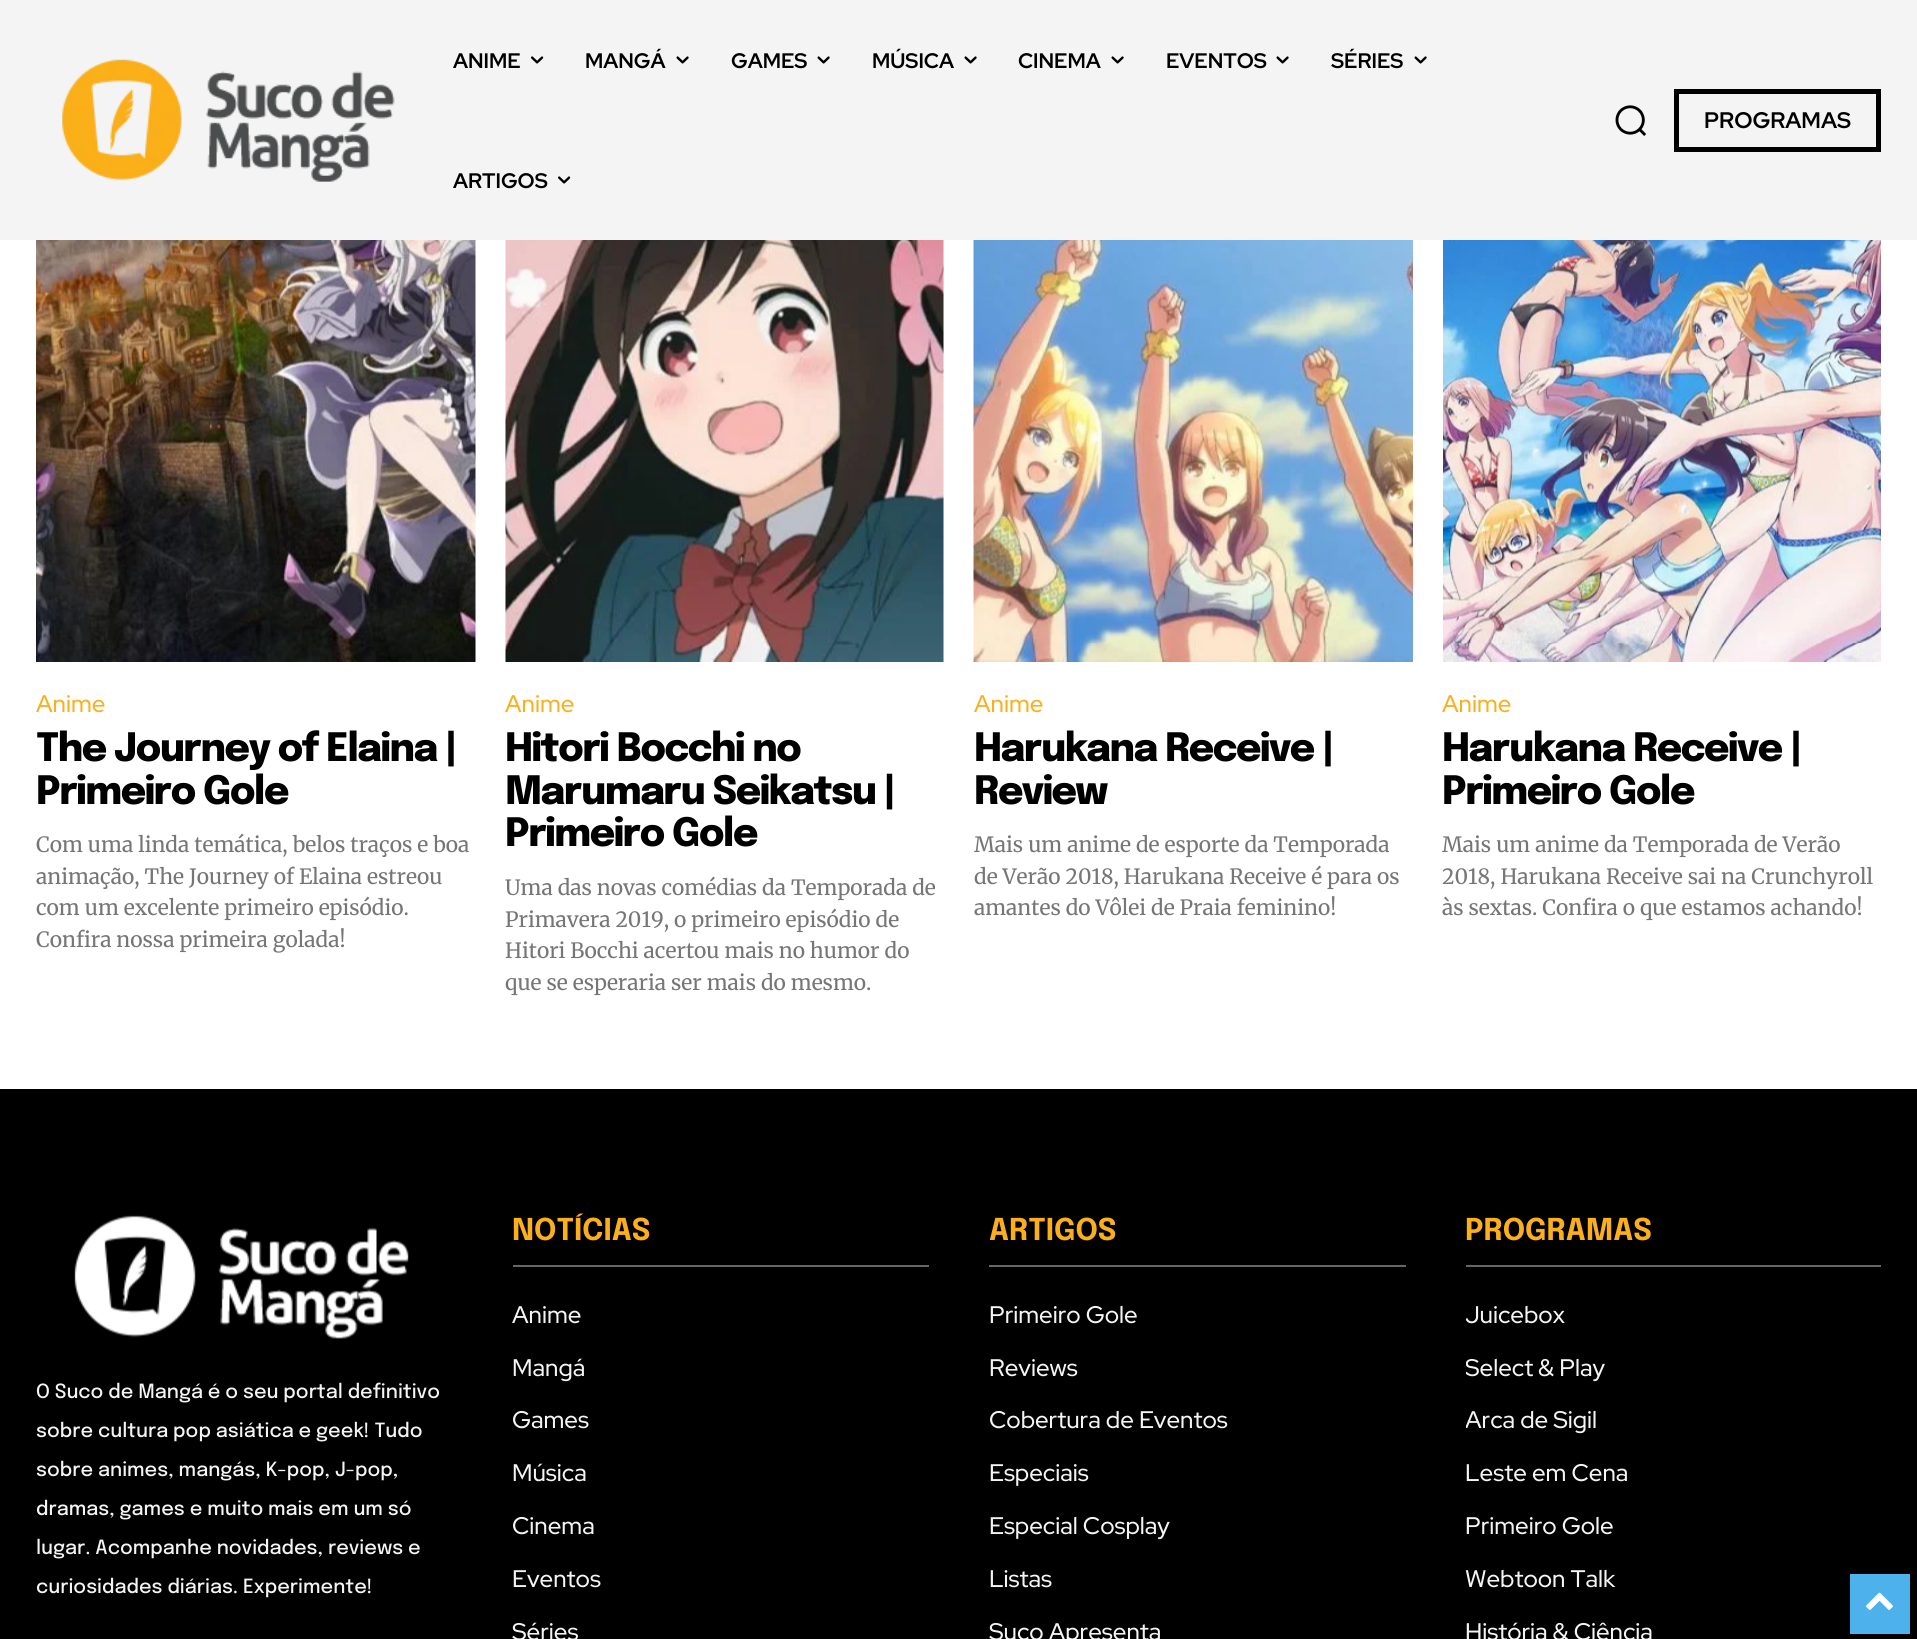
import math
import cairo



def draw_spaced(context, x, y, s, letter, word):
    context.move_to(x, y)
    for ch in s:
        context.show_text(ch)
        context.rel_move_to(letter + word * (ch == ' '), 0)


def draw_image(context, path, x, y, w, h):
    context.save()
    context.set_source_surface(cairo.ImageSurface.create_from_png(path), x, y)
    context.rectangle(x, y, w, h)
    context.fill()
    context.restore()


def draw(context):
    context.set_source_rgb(1, 1, 1)
    context.paint()
    context.set_source_rgb(244 / 255, 244 / 255, 244 / 255)
    context.rectangle(0, 0, 1917, 240)
    context.fill()
    draw_image(context, "images/1.png", 62, 59, 333, 123)
    draw_image(context, "images/2.png", 531, 56, 13, 8)
    draw_image(context, "images/3.png", 676, 56, 13, 8)
    draw_image(context, "images/3.png", 817, 56, 13, 8)
    draw_image(context, "images/3.png", 964, 56, 13, 8)
    draw_image(context, "images/3.png", 1111, 56, 13, 8)
    draw_image(context, "images/3.png", 1276, 56, 13, 8)
    draw_image(context, "images/3.png", 1414, 56, 13, 8)
    draw_image(context, "images/2.png", 558, 176, 13, 8)
    draw_image(context, "images/4.png", 1615, 105, 31, 31)
    context.rectangle(1676.5, 91.5, 202, 58)
    context.set_source_rgb(0, 0, 0)
    context.set_line_width(5)
    context.stroke()
    draw_image(context, "images/5.png", 36, 240, 440, 422)
    draw_image(context, "images/6.png", 505, 240, 439, 422)
    draw_image(context, "images/7.png", 973, 240, 440, 422)
    draw_image(context, "images/8.png", 1443, 240, 438, 422)
    context.rectangle(0, 1089, 1917, 550)
    context.fill()
    draw_image(context, "images/9.png", 74, 1215, 335, 124)
    context.set_source_rgb(102 / 255, 102 / 255, 102 / 255)
    context.rectangle(513, 1265, 416, 2)
    context.fill()
    context.rectangle(989, 1265, 417, 2)
    context.fill()
    context.rectangle(1466, 1265, 415, 2)
    context.fill()
    context.set_source_rgb(77 / 255, 178 / 255, 236 / 255)
    context.rectangle(1850, 1574, 60, 60)
    context.fill()
    draw_image(context, "images/10.png", 1866, 1592, 27, 18)
    context.select_font_face("Red Hat Display", cairo.FontSlant.NORMAL, cairo.FontWeight.BOLD)
    context.set_font_size(21)
    context.set_source_rgb(0, 0, 0)
    context.move_to(453, 68)
    context.show_text("ANIME")
    context.move_to(585, 68)
    context.show_text("MANGÁ")
    context.move_to(731, 68)
    context.show_text("GAMES")
    context.move_to(872, 68)
    context.show_text("MÚSICA")
    context.move_to(1018, 68)
    context.show_text("CINEMA")
    context.move_to(1166, 68)
    context.show_text("EVENTOS")
    context.move_to(1331, 68)
    context.show_text("SÉRIES")
    context.move_to(453, 188)
    context.show_text("ARTIGOS")
    context.set_font_size(22.5)
    context.move_to(1704, 128)
    context.show_text("PROGRAMAS")
    context.select_font_face("Red Hat Display Medium")
    context.set_font_size(24)
    context.set_source_rgb(251 / 255, 175 / 255, 26 / 255)
    context.move_to(36, 712)
    context.show_text("Anime")
    context.select_font_face("Epilogue ExtraBold")
    context.set_font_size(39)
    context.set_source_rgb(0, 0, 0)
    draw_spaced(context, 36, 761, "The Journey of Elaina |", -1.5, 0)
    draw_spaced(context, 36, 804, "Primeiro Gole", -1.5, 0)
    context.select_font_face("Merriweather Light")
    context.set_font_size(21)
    context.set_source_rgb(118 / 255, 118 / 255, 118 / 255)
    context.move_to(36, 852)
    context.show_text("Com uma linda temática, belos traços e boa")
    context.move_to(36, 884)
    context.show_text("animação, The Journey of Elaina estreou")
    context.move_to(36, 915)
    context.show_text("com um excelente primeiro episódio.")
    context.move_to(36, 947)
    context.show_text("Confira nossa primeira golada!")
    context.select_font_face("Red Hat Display Medium")
    context.set_font_size(24)
    context.set_source_rgb(251 / 255, 175 / 255, 26 / 255)
    context.move_to(505, 712)
    context.show_text("Anime")
    context.select_font_face("Epilogue ExtraBold")
    context.set_font_size(39)
    context.set_source_rgb(0, 0, 0)
    draw_spaced(context, 505, 761, "Hitori Bocchi no", -1.5, 0)
    draw_spaced(context, 505, 804, "Marumaru Seikatsu |", -1.5, 0)
    draw_spaced(context, 505, 846, "Primeiro Gole", -1.5, 0)
    context.select_font_face("Merriweather Light")
    context.set_font_size(21)
    context.set_source_rgb(118 / 255, 118 / 255, 118 / 255)
    context.move_to(505, 895)
    context.show_text("Uma das novas comédias da Temporada de")
    context.move_to(505, 927)
    context.show_text("Primavera 2019, o primeiro episódio de")
    context.move_to(505, 958)
    context.show_text("Hitori Bocchi acertou mais no humor do")
    context.move_to(505, 990)
    context.show_text("que se esperaria ser mais do mesmo.")
    context.select_font_face("Red Hat Display Medium")
    context.set_font_size(24)
    context.set_source_rgb(251 / 255, 175 / 255, 26 / 255)
    context.move_to(974, 712)
    context.show_text("Anime")
    context.select_font_face("Epilogue ExtraBold")
    context.set_font_size(39)
    context.set_source_rgb(0, 0, 0)
    draw_spaced(context, 974, 761, "Harukana Receive |", -1.5, 0)
    draw_spaced(context, 974, 804, "Review", -1.5, 0)
    context.select_font_face("Merriweather Light")
    context.set_font_size(21)
    context.set_source_rgb(118 / 255, 118 / 255, 118 / 255)
    context.move_to(974, 852)
    context.show_text("Mais um anime de esporte da Temporada")
    context.move_to(974, 884)
    context.show_text("de Verão 2018, Harukana Receive é para os")
    context.move_to(974, 915)
    context.show_text("amantes do Vôlei de Praia feminino!")
    context.select_font_face("Red Hat Display Medium")
    context.set_font_size(24)
    context.set_source_rgb(251 / 255, 175 / 255, 26 / 255)
    context.move_to(1442, 712)
    context.show_text("Anime")
    context.select_font_face("Epilogue ExtraBold")
    context.set_font_size(39)
    context.set_source_rgb(0, 0, 0)
    draw_spaced(context, 1442, 761, "Harukana Receive |", -1.5, 0)
    draw_spaced(context, 1442, 804, "Primeiro Gole", -1.5, 0)
    context.select_font_face("Merriweather Light")
    context.set_font_size(21)
    context.set_source_rgb(118 / 255, 118 / 255, 118 / 255)
    context.move_to(1442, 852)
    context.show_text("Mais um anime da Temporada de Verão")
    context.move_to(1442, 884)
    context.show_text("2018, Harukana Receive sai na Crunchyroll")
    context.move_to(1442, 915)
    context.show_text("às sextas. Confira o que estamos achando!")
    context.select_font_face("Epilogue Medium")
    context.set_font_size(19.5)
    context.set_source_rgb(244 / 255, 244 / 255, 244 / 255)
    context.move_to(36, 1398)
    context.show_text("O Suco de Mangá é o seu portal definitivo")
    context.move_to(36, 1437)
    context.show_text("sobre cultura pop asiática e geek! Tudo")
    context.move_to(36, 1476)
    context.show_text("sobre animes, mangás, K-pop, J-pop,")
    context.move_to(36, 1515)
    context.show_text("dramas, games e muito mais em um só")
    context.move_to(36, 1554)
    context.show_text("lugar. Acompanhe novidades, reviews e")
    context.move_to(36, 1593)
    context.show_text("curiosidades diárias. Experimente!")
    context.select_font_face("Epilogue", cairo.FontSlant.NORMAL, cairo.FontWeight.BOLD)
    context.set_font_size(30)
    context.set_source_rgb(251 / 255, 175 / 255, 26 / 255)
    context.move_to(512, 1240)
    context.show_text("NOTÍCIAS")
    context.select_font_face("Red Hat Display Medium")
    context.set_font_size(24)
    context.set_source_rgb(244 / 255, 244 / 255, 244 / 255)
    context.move_to(512, 1323)
    context.show_text("Anime")
    context.move_to(512, 1376)
    context.show_text("Mangá")
    context.move_to(512, 1428)
    context.show_text("Games")
    context.move_to(512, 1481)
    context.show_text("Música")
    context.move_to(512, 1534)
    context.show_text("Cinema")
    context.move_to(512, 1587)
    context.show_text("Eventos")
    context.move_to(512, 1640)
    context.show_text("Séries")
    context.select_font_face("Epilogue", cairo.FontSlant.NORMAL, cairo.FontWeight.BOLD)
    context.set_font_size(30)
    context.set_source_rgb(251 / 255, 175 / 255, 26 / 255)
    context.move_to(989, 1240)
    context.show_text("ARTIGOS")
    context.select_font_face("Red Hat Display Medium")
    context.set_font_size(24)
    context.set_source_rgb(244 / 255, 244 / 255, 244 / 255)
    context.move_to(989, 1323)
    context.show_text("Primeiro Gole")
    context.move_to(989, 1376)
    context.show_text("Reviews")
    context.move_to(989, 1428)
    context.show_text("Cobertura de Eventos")
    context.move_to(989, 1481)
    context.show_text("Especiais")
    context.move_to(989, 1534)
    context.show_text("Especial Cosplay")
    context.move_to(989, 1587)
    context.show_text("Listas")
    context.move_to(989, 1640)
    context.show_text("Suco Apresenta")
    context.select_font_face("Epilogue", cairo.FontSlant.NORMAL, cairo.FontWeight.BOLD)
    context.set_font_size(30)
    context.set_source_rgb(251 / 255, 175 / 255, 26 / 255)
    context.move_to(1465, 1240)
    context.show_text("PROGRAMAS")
    context.save()
    context.rectangle(1466, 1289, 415, 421)
    context.clip()
    context.select_font_face("Red Hat Display Medium")
    context.set_font_size(24)
    context.set_source_rgb(244 / 255, 244 / 255, 244 / 255)
    context.move_to(1465, 1323)
    context.show_text("Juicebox")
    context.move_to(1465, 1376)
    context.show_text("Select & Play")
    context.move_to(1465, 1428)
    context.show_text("Arca de Sigil")
    context.restore()
    context.select_font_face("Red Hat Display Medium")
    context.set_font_size(24)
    context.set_source_rgb(244 / 255, 244 / 255, 244 / 255)
    context.move_to(1465, 1481)
    context.show_text("Leste em Cena")
    context.move_to(1465, 1534)
    context.show_text("Primeiro Gole")
    context.move_to(1465, 1587)
    context.show_text("Webtoon Talk")
    context.move_to(1465, 1640)
    context.show_text("História & Ciência")


surface = cairo.ImageSurface(cairo.Format.RGB24, 1917, 1639)
context = cairo.Context(surface)
options = cairo.FontOptions()
options.set_hint_metrics(cairo.HintMetrics.OFF)
options.set_hint_style(cairo.HintStyle.NONE)
context.set_font_options(options)
context.set_miter_limit(4)
draw(context)
surface.write_to_png("out.png")
